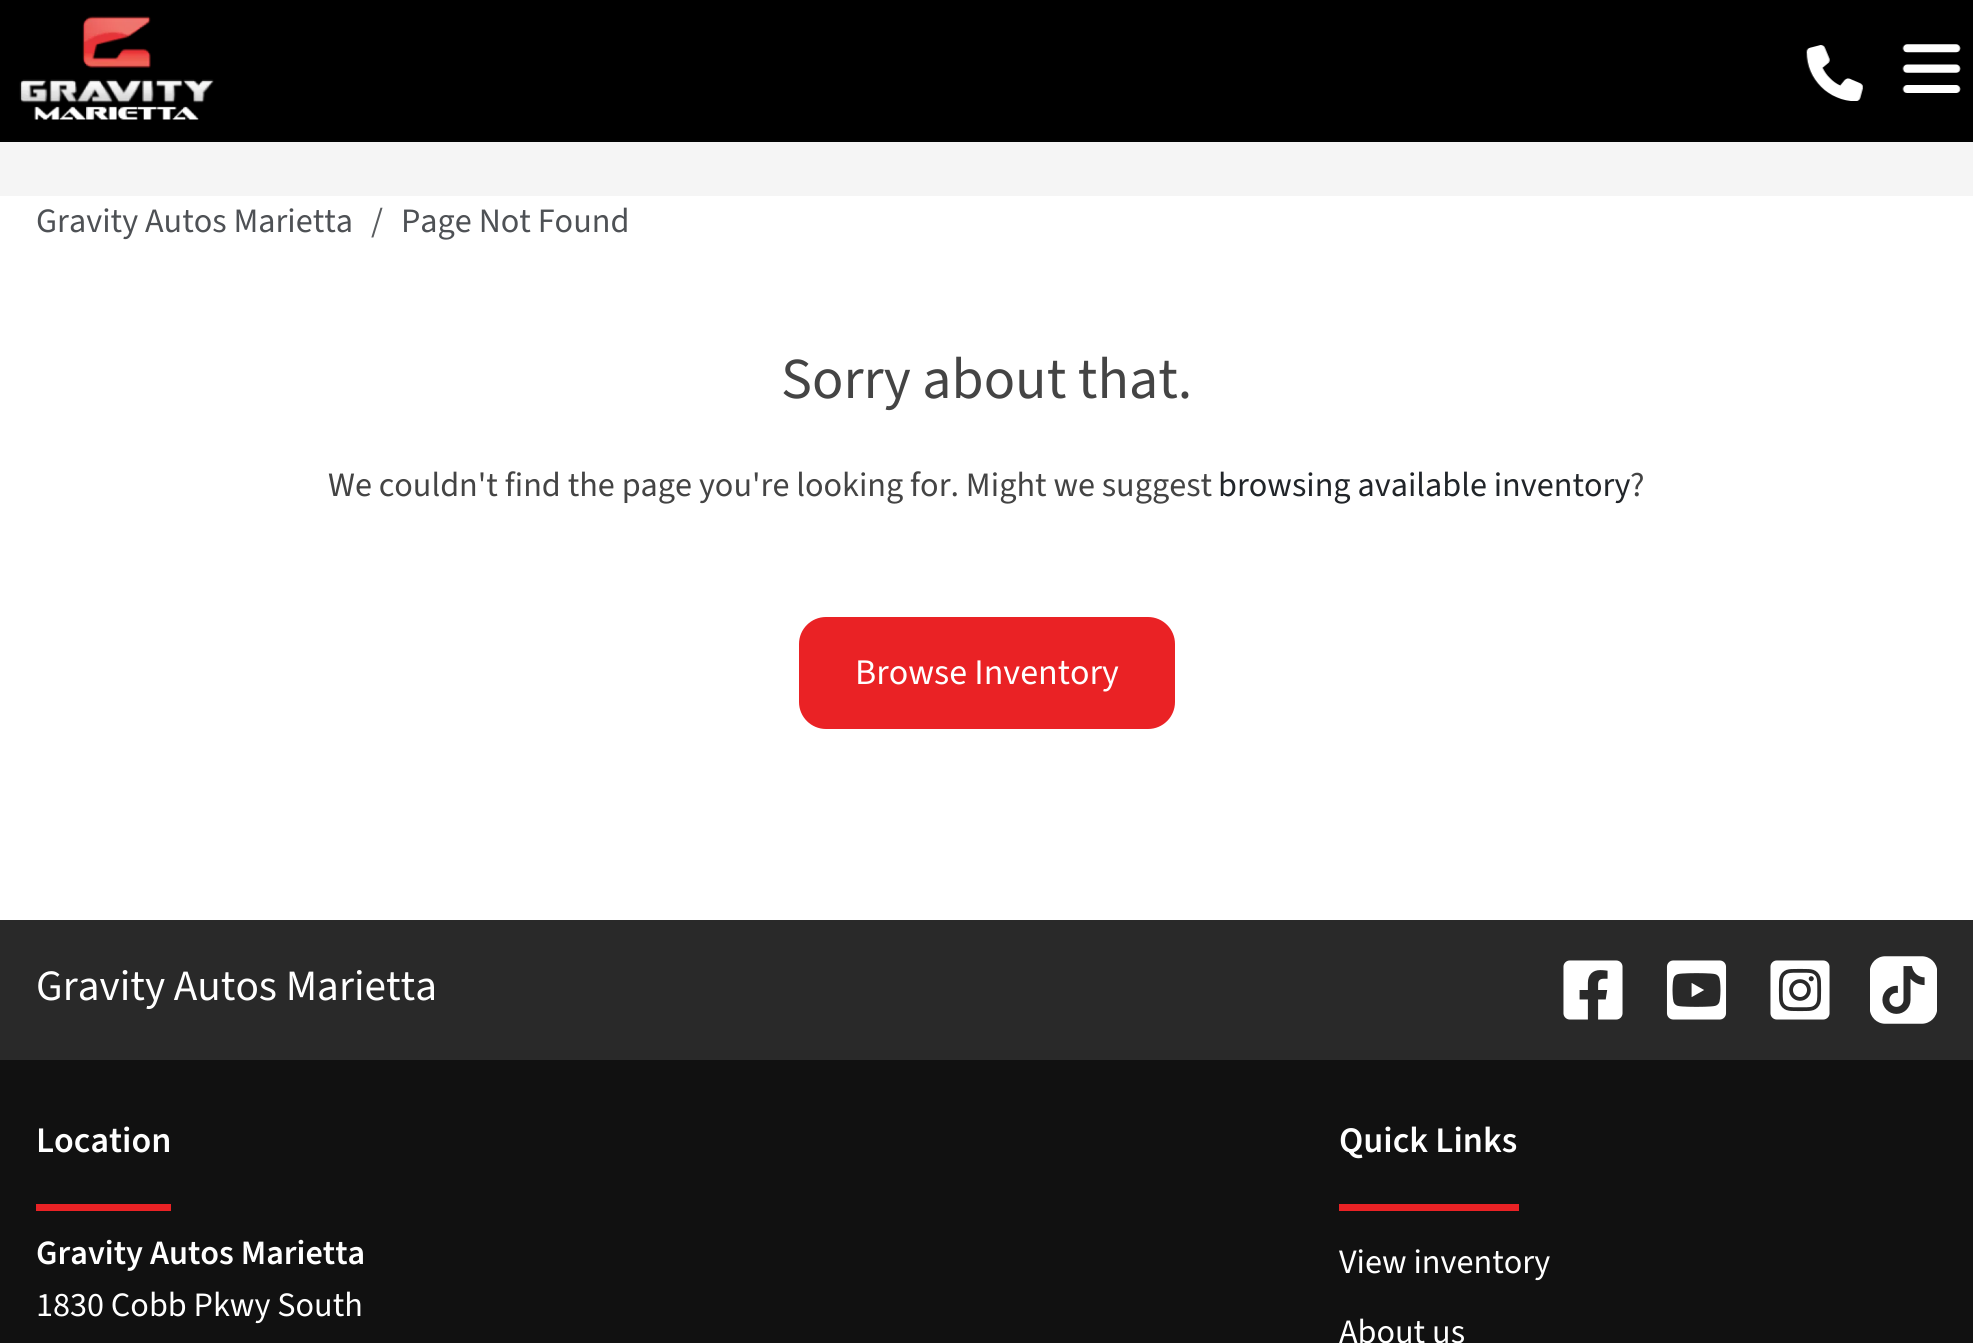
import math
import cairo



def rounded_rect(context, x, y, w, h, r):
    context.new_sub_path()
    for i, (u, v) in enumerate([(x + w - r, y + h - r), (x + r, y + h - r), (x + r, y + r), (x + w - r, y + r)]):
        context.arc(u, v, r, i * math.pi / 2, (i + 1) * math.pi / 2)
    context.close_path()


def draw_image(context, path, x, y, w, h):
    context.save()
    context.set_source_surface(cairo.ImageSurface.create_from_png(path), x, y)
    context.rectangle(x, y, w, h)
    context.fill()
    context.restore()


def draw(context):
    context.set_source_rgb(245 / 255, 245 / 255, 245 / 255)
    context.paint()
    context.set_source_rgb(0, 0, 0)
    context.rectangle(0, 0, 1973, 140)
    context.fill()
    context.set_source_rgb(2 / 255, 3 / 255, 3 / 255)
    context.rectangle(0, 140, 1973, 2)
    context.fill()
    draw_image(context, "images/1.png", 19, 16, 195, 104)
    draw_image(context, "images/2.png", 1806, 45, 57, 56)
    draw_image(context, "images/3.png", 1902, 44, 59, 49)
    context.set_source_rgb(1, 1, 1)
    context.rectangle(0, 196, 1973, 724)
    context.fill()
    context.set_source_rgb(234 / 255, 34 / 255, 37 / 255)
    rounded_rect(context, 800, 618, 374, 110, 26)
    context.fill_preserve()
    context.stroke()
    context.set_source_rgb(17 / 255, 17 / 255, 17 / 255)
    context.rectangle(0, 1060, 1973, 283)
    context.fill()
    context.set_source_rgb(41 / 255, 41 / 255, 41 / 255)
    context.rectangle(0, 920, 1973, 140)
    context.fill()
    draw_image(context, "images/4.png", 1563, 960, 60, 60)
    draw_image(context, "images/5.png", 1666, 960, 61, 60)
    draw_image(context, "images/6.png", 1770, 960, 60, 60)
    draw_image(context, "images/7.png", 1870, 956, 67, 68)
    context.set_source_rgb(234 / 255, 34 / 255, 37 / 255)
    context.rectangle(36, 1204, 135, 7)
    context.fill()
    context.rectangle(1339, 1204, 180, 7)
    context.fill()
    context.select_font_face("Source Sans 3 ExtraLight")
    context.set_font_size(34.2)
    context.set_source_rgb(78 / 255, 81 / 255, 85 / 255)
    context.move_to(36, 232)
    context.show_text("Gravity Autos Marietta")
    context.set_source_rgb(89 / 255, 92 / 255, 95 / 255)
    context.move_to(371, 232)
    context.show_text("/")
    context.set_source_rgb(78 / 255, 81 / 255, 85 / 255)
    context.move_to(401, 232)
    context.show_text("Page Not Found")
    context.set_font_size(58)
    context.set_source_rgb(68 / 255, 68 / 255, 68 / 255)
    context.move_to(781, 398)
    context.show_text("Sorry about that.")
    context.set_font_size(34.2)
    context.move_to(328, 496)
    context.show_text("We couldn't find the page you're looking for. Might we suggest")
    context.set_source_rgb(33 / 255, 37 / 255, 41 / 255)
    context.move_to(1218, 496)
    context.show_text("browsing available inventory")
    context.set_source_rgb(68 / 255, 68 / 255, 68 / 255)
    context.move_to(1630, 496)
    context.show_text("?")
    context.set_font_size(36)
    context.set_source_rgb(1, 1, 1)
    context.move_to(855, 684)
    context.show_text("Browse Inventory")
    context.set_font_size(43.25)
    context.move_to(36, 1000)
    context.show_text("Gravity Autos Marietta")
    context.select_font_face("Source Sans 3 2 ExtraLight")
    context.set_font_size(36)
    context.move_to(36, 1152)
    context.show_text("Location")
    context.set_font_size(34.2)
    context.move_to(36, 1264)
    context.show_text("Gravity Autos Marietta")
    context.select_font_face("Source Sans 3 ExtraLight")
    context.move_to(36, 1316)
    context.show_text("1830 Cobb Pkwy South")
    context.select_font_face("Source Sans 3 2 ExtraLight")
    context.set_font_size(36)
    context.move_to(1339, 1152)
    context.show_text("Quick Links")
    context.select_font_face("Source Sans 3 ExtraLight")
    context.set_font_size(34.2)
    context.move_to(1339, 1273)
    context.show_text("View inventory")
    context.move_to(1339, 1343)
    context.show_text("About us")


surface = cairo.ImageSurface(cairo.Format.RGB24, 1973, 1343)
context = cairo.Context(surface)
options = cairo.FontOptions()
options.set_hint_metrics(cairo.HintMetrics.OFF)
options.set_hint_style(cairo.HintStyle.NONE)
context.set_font_options(options)
context.set_miter_limit(4)
draw(context)
surface.write_to_png("out.png")
